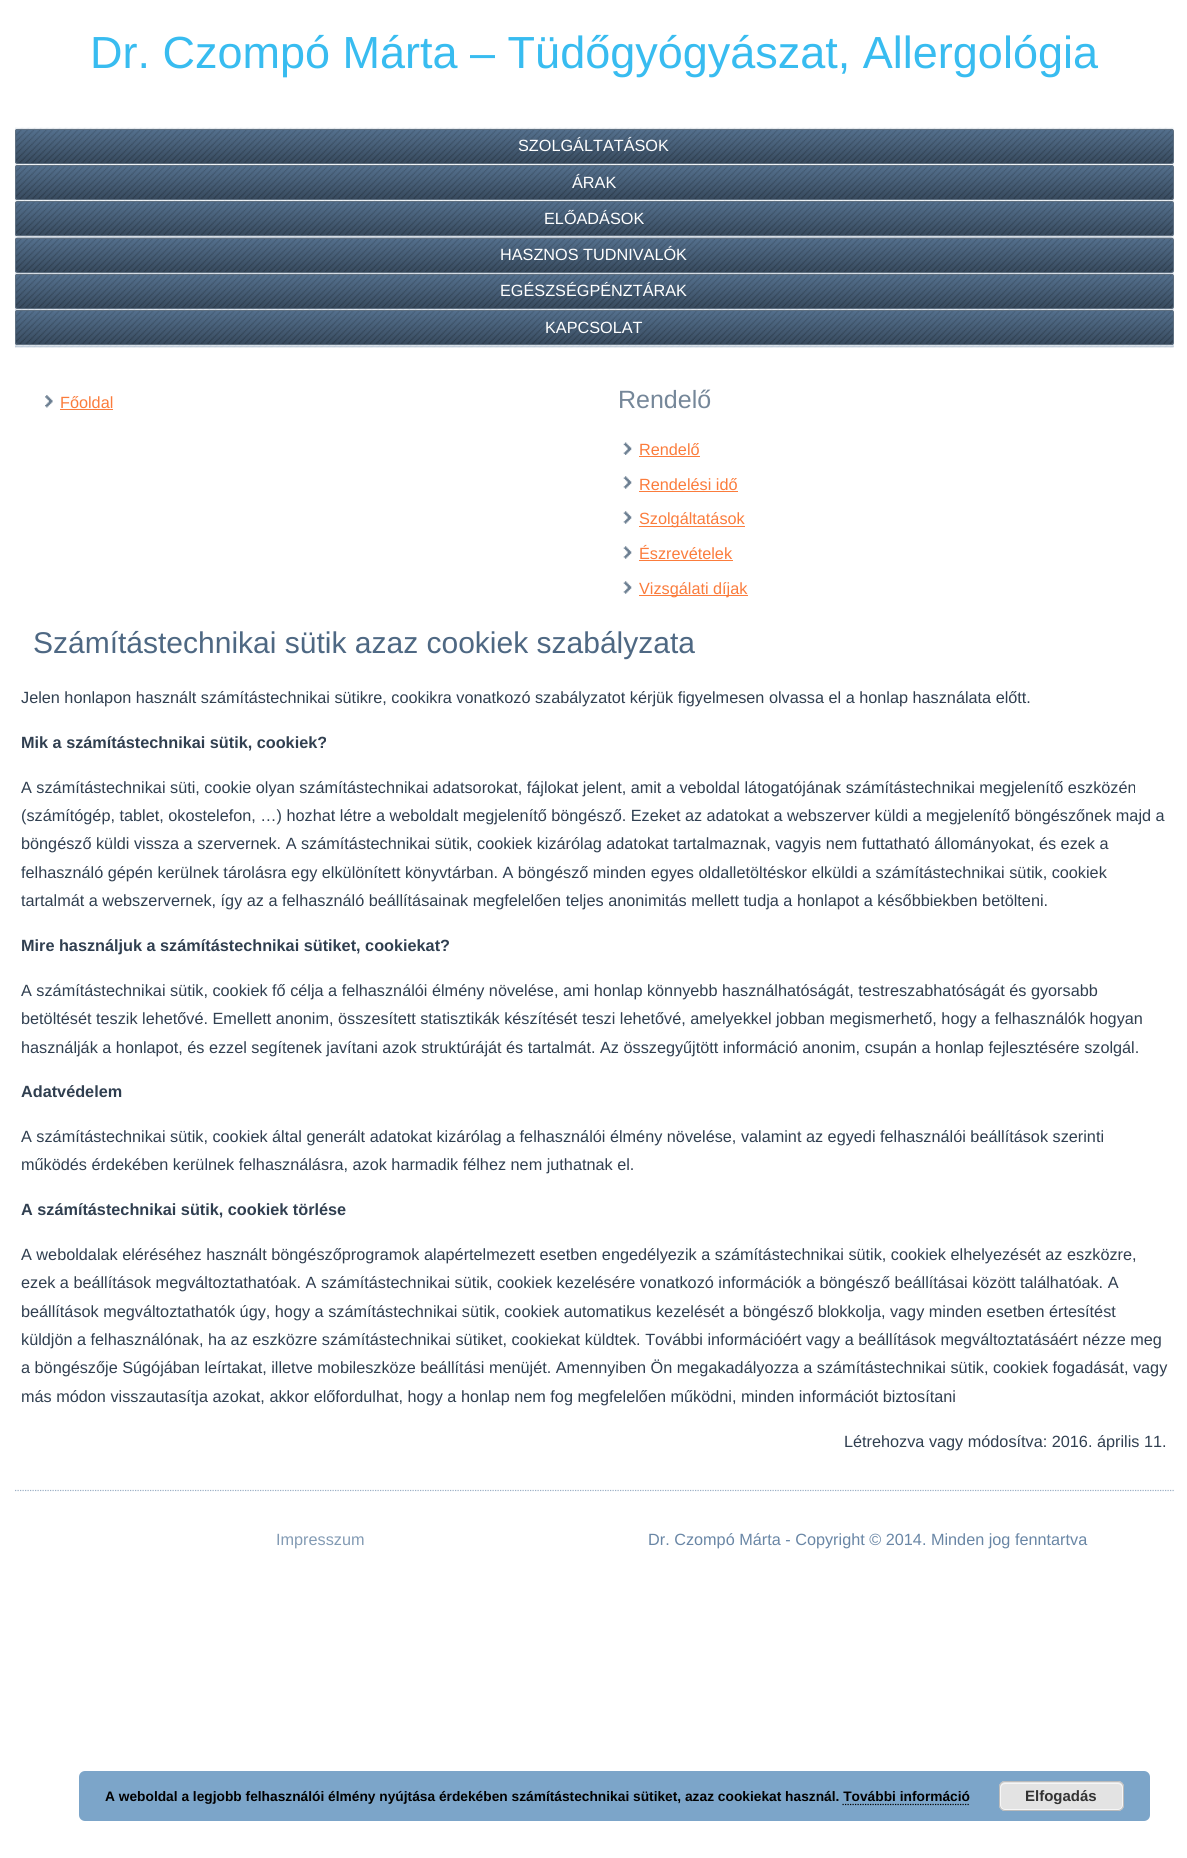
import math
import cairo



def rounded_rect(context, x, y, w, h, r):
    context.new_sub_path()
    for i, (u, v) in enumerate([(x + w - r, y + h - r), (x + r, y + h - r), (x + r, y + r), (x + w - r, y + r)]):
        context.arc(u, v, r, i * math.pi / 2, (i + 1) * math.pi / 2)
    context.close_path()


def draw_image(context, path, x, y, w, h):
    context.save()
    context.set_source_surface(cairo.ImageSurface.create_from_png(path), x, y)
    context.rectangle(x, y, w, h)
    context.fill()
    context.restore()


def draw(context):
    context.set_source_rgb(1, 1, 1)
    context.paint()
    draw_image(context, "images/1.png", 15, 127, 1159, 221)
    context.set_source_rgba(163 / 255, 180 / 255, 200 / 255, 0.4)
    context.rectangle(15, 346, 1159, 1)
    context.fill()
    draw_image(context, "images/2.png", 15, 128, 1159, 36)
    rounded_rect(context, 15.5, 129.5, 1158, 34, 2)
    context.set_source_rgb(95 / 255, 112 / 255, 129 / 255)
    context.set_line_width(1)
    context.stroke()
    draw_image(context, "images/3.png", 15, 165, 1159, 35)
    rounded_rect(context, 15.5, 165.5, 1158, 34, 2)
    context.stroke()
    draw_image(context, "images/4.png", 15, 201, 1159, 36)
    rounded_rect(context, 15.5, 201.5, 1158, 34, 2)
    context.stroke()
    draw_image(context, "images/5.png", 15, 237, 1159, 36)
    rounded_rect(context, 15.5, 238.5, 1158, 34, 2)
    context.stroke()
    draw_image(context, "images/6.png", 15, 273, 1159, 36)
    rounded_rect(context, 15.5, 274.5, 1158, 34, 2)
    context.stroke()
    draw_image(context, "images/7.png", 15, 310, 1159, 35)
    rounded_rect(context, 15.5, 310.5, 1158, 34, 2)
    context.stroke()
    draw_image(context, "images/8.png", 45, 395, 8, 13)
    context.set_source_rgb(251 / 255, 124 / 255, 60 / 255)
    context.rectangle(60, 409, 53, 1)
    context.fill()
    draw_image(context, "images/9.png", 623, 442, 9, 13)
    context.rectangle(639, 456, 61, 1)
    context.fill()
    draw_image(context, "images/10.png", 623, 476, 9, 13)
    context.rectangle(639, 491, 99, 1)
    context.fill()
    draw_image(context, "images/10.png", 623, 511, 9, 13)
    context.rectangle(639, 526, 106, 1)
    context.fill()
    draw_image(context, "images/10.png", 623, 546, 9, 13)
    context.rectangle(639, 560, 94, 1)
    context.fill()
    draw_image(context, "images/11.png", 623, 581, 9, 13)
    context.rectangle(639, 595, 109, 1)
    context.fill()
    context.new_path()
    context.move_to(15, 1490.5)
    context.line_to(1174, 1490.5)
    context.set_source_rgb(156 / 255, 175 / 255, 196 / 255)
    context.set_line_width(1.2)
    context.set_dash([1.25, 1.25])
    context.stroke()
    context.set_source_rgb(124 / 255, 165 / 255, 201 / 255)
    rounded_rect(context, 79, 1771, 1071, 50, 6)
    context.fill()
    context.set_source_rgb(227 / 255, 227 / 255, 227 / 255)
    rounded_rect(context, 999, 1781, 125, 30, 6)
    context.fill()
    rounded_rect(context, 1000.5, 1783.5, 122, 26, 4.5)
    context.set_source_rgb(246 / 255, 246 / 255, 246 / 255)
    context.set_line_width(1)
    context.set_dash([])
    context.stroke()
    rounded_rect(context, 999.5, 1781.5, 124, 29, 5.5)
    context.set_source_rgb(187 / 255, 187 / 255, 187 / 255)
    context.stroke()
    context.new_path()
    context.move_to(842.5, 1804.5)
    context.line_to(970, 1804.5)
    context.set_source_rgb(0, 0, 0)
    context.set_line_width(1.2)
    context.set_dash([1.25, 1.25])
    context.stroke()
    context.select_font_face("Liberation Sans")
    context.set_font_size(45)
    context.set_source_rgb(56 / 255, 188 / 255, 240 / 255)
    context.move_to(90, 68)
    context.show_text("Dr. Czompó Márta – Tüdőgyógyászat, Allergológia")
    context.set_font_size(16.25)
    context.set_source_rgb(1, 1, 1)
    context.move_to(518, 151)
    context.show_text("SZOLGÁLTATÁSOK")
    context.move_to(572, 188)
    context.show_text("ÁRAK")
    context.move_to(544, 224)
    context.show_text("ELŐADÁSOK")
    context.move_to(500, 260)
    context.show_text("HASZNOS TUDNIVALÓK")
    context.move_to(500, 296)
    context.show_text("EGÉSZSÉGPÉNZTÁRAK")
    context.move_to(545, 333)
    context.show_text("KAPCSOLAT")
    context.set_source_rgb(251 / 255, 124 / 255, 60 / 255)
    context.move_to(60, 408)
    context.show_text("Főoldal")
    context.set_font_size(25)
    context.set_source_rgb(117 / 255, 135 / 255, 153 / 255)
    context.move_to(618, 408)
    context.show_text("Rendelő")
    context.set_font_size(16.25)
    context.set_source_rgb(251 / 255, 124 / 255, 60 / 255)
    context.move_to(639, 455)
    context.show_text("Rendelő")
    context.move_to(639, 490)
    context.show_text("Rendelési idő")
    context.move_to(639, 524)
    context.show_text("Szolgáltatások")
    context.move_to(639, 559)
    context.show_text("Észrevételek")
    context.move_to(639, 594)
    context.show_text("Vizsgálati díjak")
    context.set_font_size(30)
    context.set_source_rgb(78 / 255, 104 / 255, 131 / 255)
    context.move_to(33, 653)
    context.show_text("Számítástechnikai sütik azaz cookiek szabályzata")
    context.set_font_size(16.25)
    context.set_source_rgb(48 / 255, 63 / 255, 80 / 255)
    context.move_to(21, 703)
    context.show_text("Jelen honlapon használt számítástechnikai sütikre, cookikra vonatkozó szabályzatot kérjük figyelmesen olvassa el a honlap használata előtt.")
    context.select_font_face("Liberation Sans", cairo.FontSlant.NORMAL, cairo.FontWeight.BOLD)
    context.move_to(21, 748)
    context.show_text("Mik a számítástechnikai sütik, cookiek?")
    context.select_font_face("Liberation Sans")
    context.move_to(21, 793)
    context.show_text("A számítástechnikai süti, cookie olyan számítástechnikai adatsorokat, fájlokat jelent, amit a veboldal látogatójának számítástechnikai megjelenítő eszközén")
    context.move_to(21, 821)
    context.show_text("(számítógép, tablet, okostelefon, …) hozhat létre a weboldalt megjelenítő böngésző. Ezeket az adatokat a webszerver küldi a megjelenítő böngészőnek majd a")
    context.move_to(21, 849)
    context.show_text("böngésző küldi vissza a szervernek. A számítástechnikai sütik, cookiek kizárólag adatokat tartalmaznak, vagyis nem futtatható állományokat, és ezek a")
    context.move_to(21, 878)
    context.show_text("felhasználó gépén kerülnek tárolásra egy elkülönített könyvtárban. A böngésző minden egyes oldalletöltéskor elküldi a számítástechnikai sütik, cookiek")
    context.move_to(21, 906)
    context.show_text("tartalmát a webszervernek, így az a felhasználó beállításainak megfelelően teljes anonimitás mellett tudja a honlapot a későbbiekben betölteni.")
    context.select_font_face("Liberation Sans", cairo.FontSlant.NORMAL, cairo.FontWeight.BOLD)
    context.move_to(21, 951)
    context.show_text("Mire használjuk a számítástechnikai sütiket, cookiekat?")
    context.select_font_face("Liberation Sans")
    context.move_to(21, 996)
    context.show_text("A számítástechnikai sütik, cookiek fő célja a felhasználói élmény növelése, ami honlap könnyebb használhatóságát, testreszabhatóságát és gyorsabb")
    context.move_to(21, 1024)
    context.show_text("betöltését teszik lehetővé. Emellett anonim, összesített statisztikák készítését teszi lehetővé, amelyekkel jobban megismerhető, hogy a felhasználók hogyan")
    context.move_to(21, 1053)
    context.show_text("használják a honlapot, és ezzel segítenek javítani azok struktúráját és tartalmát. Az összegyűjtött információ anonim, csupán a honlap fejlesztésére szolgál.")
    context.select_font_face("Liberation Sans", cairo.FontSlant.NORMAL, cairo.FontWeight.BOLD)
    context.move_to(21, 1097)
    context.show_text("Adatvédelem")
    context.select_font_face("Liberation Sans")
    context.move_to(21, 1142)
    context.show_text("A számítástechnikai sütik, cookiek által generált adatokat kizárólag a felhasználói élmény növelése, valamint az egyedi felhasználói beállítások szerinti")
    context.move_to(21, 1170)
    context.show_text("működés érdekében kerülnek felhasználásra, azok harmadik félhez nem juthatnak el.")
    context.select_font_face("Liberation Sans", cairo.FontSlant.NORMAL, cairo.FontWeight.BOLD)
    context.move_to(21, 1215)
    context.show_text("A számítástechnikai sütik, cookiek törlése")
    context.select_font_face("Liberation Sans")
    context.move_to(21, 1260)
    context.show_text("A weboldalak eléréséhez használt böngészőprogramok alapértelmezett esetben engedélyezik a számítástechnikai sütik, cookiek elhelyezését az eszközre,")
    context.move_to(21, 1288)
    context.show_text("ezek a beállítások megváltoztathatóak. A számítástechnikai sütik, cookiek kezelésére vonatkozó információk a böngésző beállításai között találhatóak. A")
    context.move_to(21, 1317)
    context.show_text("beállítások megváltoztathatók úgy, hogy a számítástechnikai sütik, cookiek automatikus kezelését a böngésző blokkolja, vagy minden esetben értesítést")
    context.move_to(21, 1345)
    context.show_text("küldjön a felhasználónak, ha az eszközre számítástechnikai sütiket, cookiekat küldtek. További információért vagy a beállítások megváltoztatásáért nézze meg")
    context.move_to(21, 1373)
    context.show_text("a böngészője Súgójában leírtakat, illetve mobileszköze beállítási menüjét. Amennyiben Ön megakadályozza a számítástechnikai sütik, cookiek fogadását, vagy")
    context.move_to(21, 1402)
    context.show_text("más módon visszautasítja azokat, akkor előfordulhat, hogy a honlap nem fog megfelelően működni, minden információt biztosítani")
    context.move_to(844, 1447)
    context.show_text("Létrehozva vagy módosítva: 2016. április 11.")
    context.set_source_rgb(131 / 255, 155 / 255, 180 / 255)
    context.move_to(276, 1545)
    context.show_text("Impresszum")
    context.set_source_rgb(105 / 255, 134 / 255, 165 / 255)
    context.move_to(648, 1545)
    context.show_text("Dr. Czompó Márta - Copyright © 2014. Minden jog fenntartva")
    context.select_font_face("Liberation Sans", cairo.FontSlant.NORMAL, cairo.FontWeight.BOLD)
    context.set_font_size(13.75)
    context.set_source_rgb(0, 0, 0)
    context.move_to(105, 1801)
    context.show_text("A weboldal a legjobb felhasználói élmény nyújtása érdekében számítástechnikai sütiket, azaz cookiekat használ. További információ")
    context.set_font_size(15)
    context.set_source_rgb(51 / 255, 51 / 255, 51 / 255)
    context.move_to(1025, 1801)
    context.show_text("Elfogadás")


surface = cairo.ImageSurface(cairo.Format.RGB24, 1187, 1858)
context = cairo.Context(surface)
options = cairo.FontOptions()
options.set_hint_metrics(cairo.HintMetrics.OFF)
options.set_hint_style(cairo.HintStyle.NONE)
context.set_font_options(options)
context.set_miter_limit(4)
draw(context)
surface.write_to_png("out.png")
